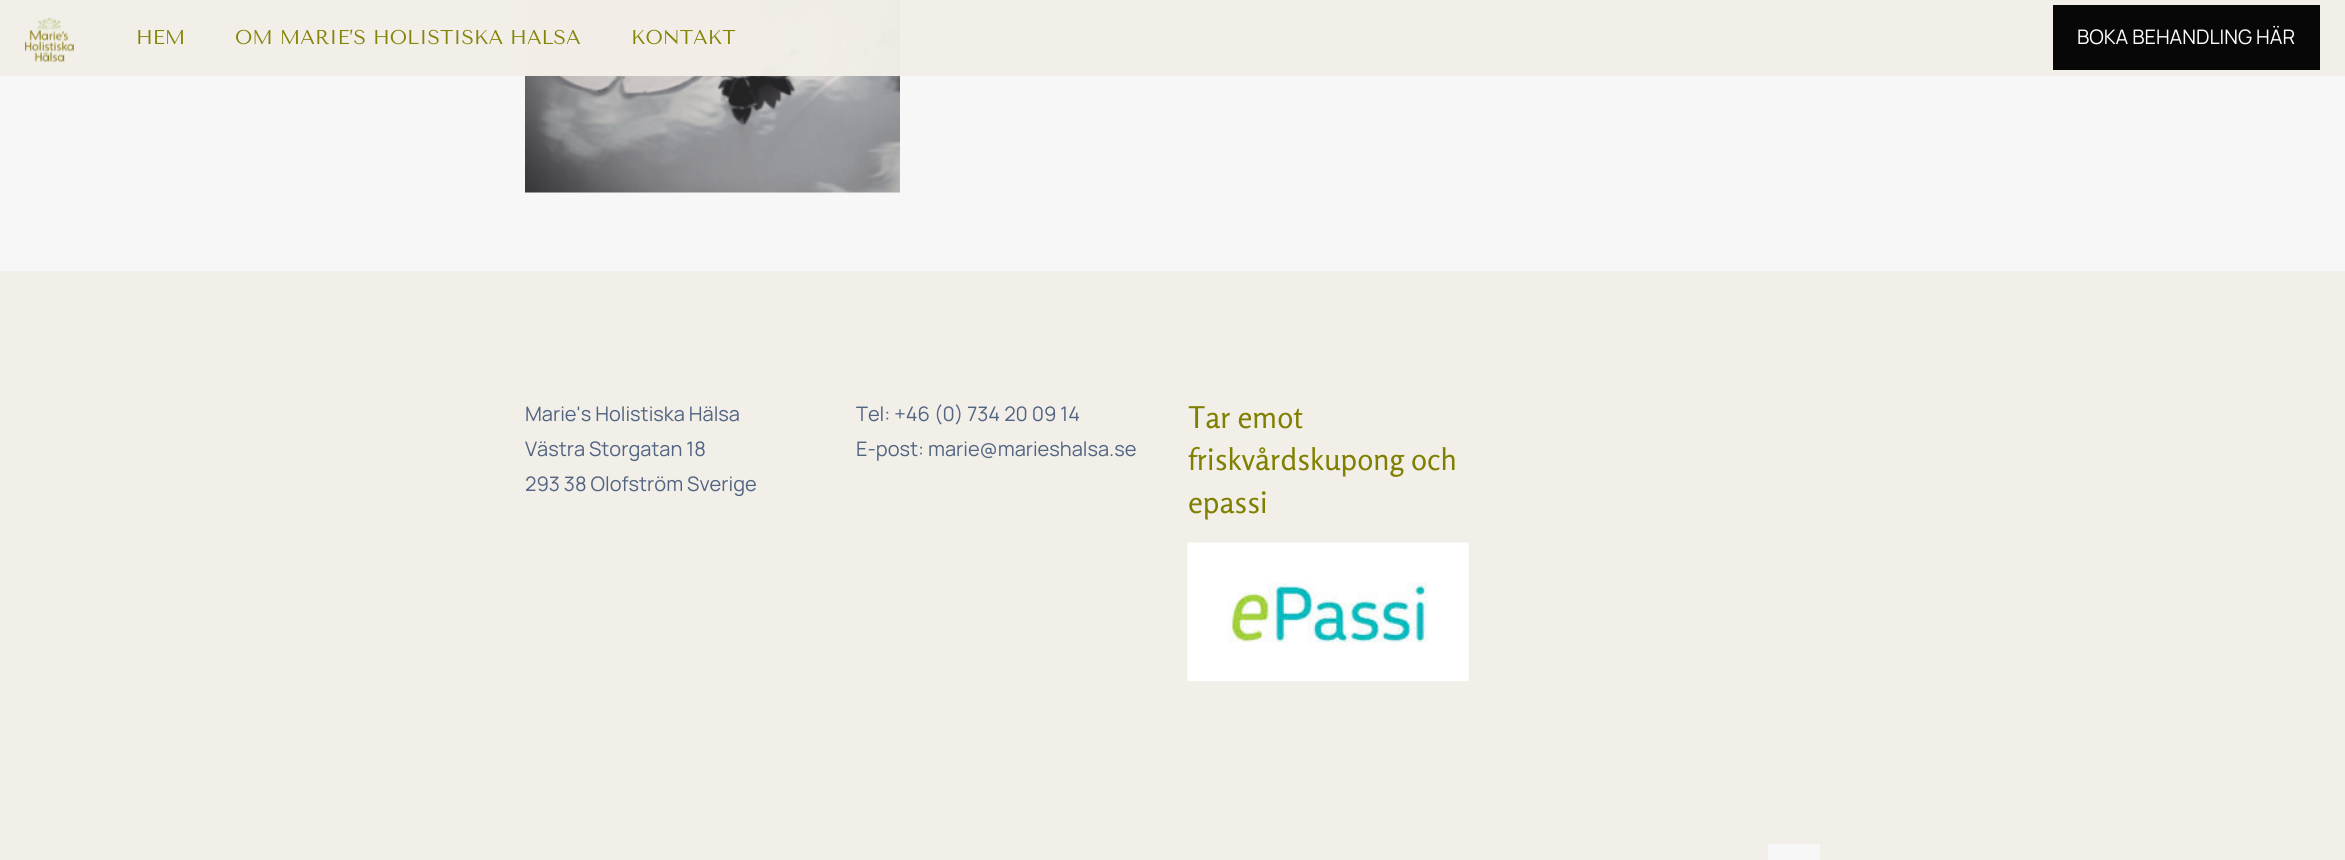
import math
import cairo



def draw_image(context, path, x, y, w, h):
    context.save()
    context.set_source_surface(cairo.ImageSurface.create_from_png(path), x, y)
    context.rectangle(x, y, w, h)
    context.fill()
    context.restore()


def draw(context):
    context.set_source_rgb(247 / 255, 247 / 255, 247 / 255)
    context.paint()
    draw_image(context, "images/1.png", 525, 0, 375, 193)
    context.set_source_rgba(242 / 255, 238 / 255, 232 / 255, 0.97)
    context.rectangle(0, 0, 2345, 76)
    context.fill()
    draw_image(context, "images/2.png", 25, 17, 49, 45)
    context.rectangle(525, 0, 235, 75)
    context.fill()
    context.set_source_rgb(7 / 255, 7 / 255, 7 / 255)
    context.rectangle(2053, 5, 267, 65)
    context.fill()
    context.set_source_rgb(242 / 255, 238 / 255, 232 / 255)
    context.rectangle(0, 271, 2345, 589)
    context.fill()
    draw_image(context, "images/3.png", 1187, 542, 282, 140)
    context.set_source_rgb(247 / 255, 247 / 255, 247 / 255)
    context.rectangle(1768, 844, 52, 16)
    context.fill()
    context.select_font_face("Tenor Sans")
    context.set_font_size(20)
    context.set_source_rgb(132 / 255, 132 / 255, 7 / 255)
    context.move_to(136, 44)
    context.show_text("HEM")
    context.move_to(235, 44)
    context.show_text("OM MARIE’S HOLISTISKA HALSA")
    context.move_to(631, 44)
    context.show_text("KONTAKT")
    context.select_font_face("Manrope")
    context.set_source_rgb(1, 1, 1)
    context.move_to(2077, 44)
    context.show_text("BOKA BEHANDLING HÄR")
    context.set_source_rgb(81 / 255, 100 / 255, 130 / 255)
    context.move_to(525, 421)
    context.show_text("Marie's Holistiska Hälsa")
    context.move_to(525, 456)
    context.show_text("Västra Storgatan 18")
    context.move_to(525, 491)
    context.show_text("293 38 Olofström Sverige")
    context.move_to(856, 421)
    context.show_text("Tel: +46 (0) 734 20 09 14")
    context.move_to(856, 456)
    context.show_text("E-post: marie@marieshalsa.se")
    context.select_font_face("Rosario")
    context.set_font_size(30)
    context.set_source_rgb(128 / 255, 128 / 255, 0)
    context.move_to(1188, 428)
    context.show_text("Tar emot")
    context.move_to(1188, 470)
    context.show_text("friskvårdskupong och")
    context.move_to(1188, 513)
    context.show_text("epassi")


surface = cairo.ImageSurface(cairo.Format.RGB24, 2345, 860)
context = cairo.Context(surface)
options = cairo.FontOptions()
options.set_hint_metrics(cairo.HintMetrics.OFF)
options.set_hint_style(cairo.HintStyle.NONE)
context.set_font_options(options)
context.set_miter_limit(4)
draw(context)
surface.write_to_png("out.png")
